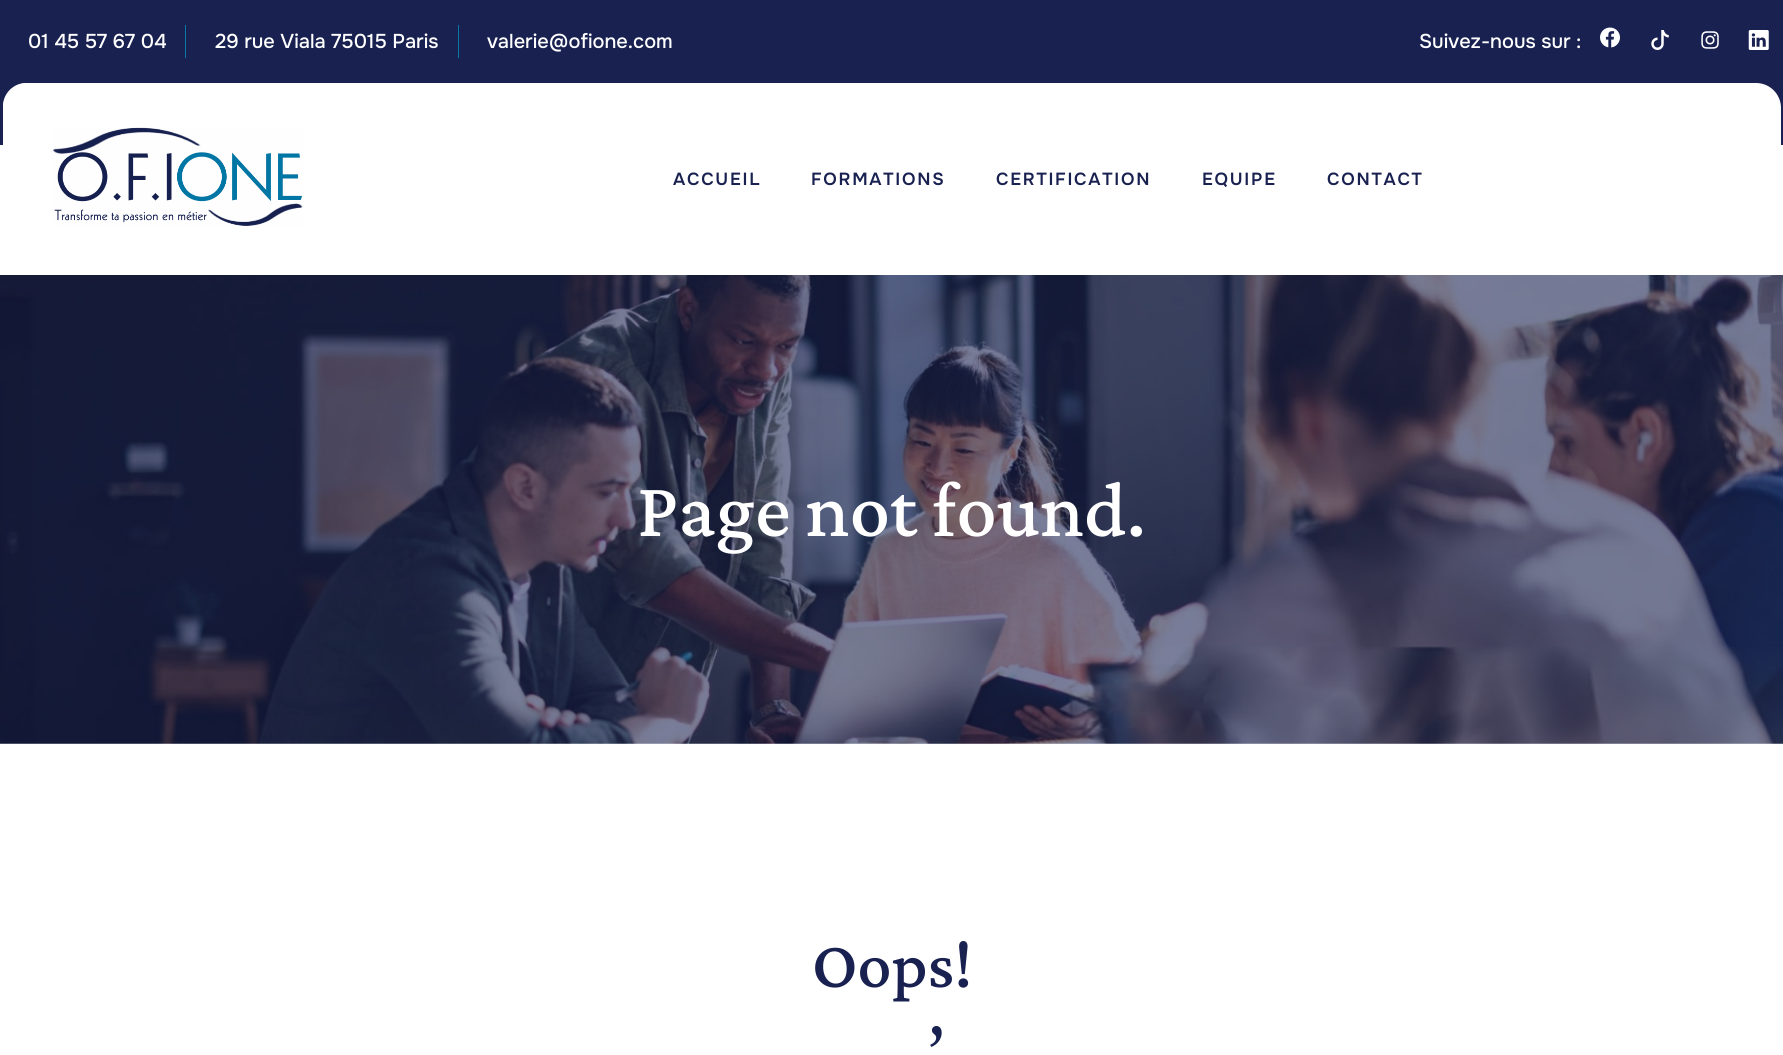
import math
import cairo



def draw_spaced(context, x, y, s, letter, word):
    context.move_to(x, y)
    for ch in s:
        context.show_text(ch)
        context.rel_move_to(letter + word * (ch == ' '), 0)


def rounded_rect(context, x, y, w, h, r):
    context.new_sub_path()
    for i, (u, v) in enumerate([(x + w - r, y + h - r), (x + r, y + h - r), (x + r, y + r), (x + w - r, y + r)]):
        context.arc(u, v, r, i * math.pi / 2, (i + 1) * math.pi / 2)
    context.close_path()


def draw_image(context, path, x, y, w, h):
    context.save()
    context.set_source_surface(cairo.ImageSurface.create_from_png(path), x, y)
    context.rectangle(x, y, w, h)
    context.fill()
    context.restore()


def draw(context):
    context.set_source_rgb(1, 1, 1)
    context.paint()
    context.set_source_rgb(25 / 255, 33 / 255, 81 / 255)
    context.rectangle(0, 0, 1783, 145)
    context.fill()
    context.set_source_rgb(10 / 255, 119 / 255, 166 / 255)
    context.rectangle(185, 25, 1, 33)
    context.fill()
    context.rectangle(458, 25, 1, 33)
    context.fill()
    draw_image(context, "images/1.png", 1600, 27, 20, 21)
    draw_image(context, "images/2.png", 1651, 30, 18, 20)
    draw_image(context, "images/3.png", 1701, 31, 18, 18)
    draw_image(context, "images/4.png", 1748, 30, 21, 20)
    context.set_source_rgb(1, 1, 1)
    rounded_rect(context, 3, 83, 1778, 192, 25)
    context.fill()
    context.new_path()
    context.move_to(26, 83)
    context.line_to(353, 83)
    context.line_to(353, 275)
    context.line_to(24, 275)
    context.curve_to(12.5, 275, 3, 265.5, 3, 254)
    context.line_to(3, 106)
    context.curve_to(3, 93.5, 13.5, 83, 26, 83)
    context.close_path()
    context.fill()
    draw_image(context, "images/5.png", 52, 127, 251, 99)
    draw_image(context, "images/6.png", 0, 275, 1783, 469)
    context.select_font_face("Onest Medium")
    context.set_font_size(20)
    context.move_to(28, 48)
    context.show_text("01 45 57 67 04")
    context.move_to(215, 48)
    context.show_text("29 rue Viala 75015 Paris")
    context.move_to(487, 48)
    context.show_text("valerie@ofione.com")
    context.move_to(1419, 48)
    context.show_text("Suivez-nous sur :")
    context.select_font_face("Onest SemiBold")
    context.set_font_size(17.5)
    context.set_source_rgb(25 / 255, 33 / 255, 81 / 255)
    draw_spaced(context, 673, 185, "ACCUEIL", 1.75, 0)
    draw_spaced(context, 811, 185, "FORMATIONS", 1.75, 0)
    draw_spaced(context, 996, 185, "CERTIFICATION", 1.75, 0)
    draw_spaced(context, 1202, 185, "EQUIPE", 1.75, 0)
    draw_spaced(context, 1327, 185, "CONTACT", 1.75, 0)
    context.select_font_face("Crimson Pro Medium")
    context.set_font_size(80)
    context.set_source_rgb(1, 1, 1)
    context.move_to(637, 536)
    context.show_text("Page not found.")
    context.set_font_size(67.5)
    context.set_source_rgb(25 / 255, 33 / 255, 81 / 255)
    context.move_to(812, 987)
    context.show_text("Oops!")
    context.move_to(928, 1072)
    context.show_text("’")


surface = cairo.ImageSurface(cairo.Format.RGB24, 1783, 1055)
context = cairo.Context(surface)
options = cairo.FontOptions()
options.set_hint_metrics(cairo.HintMetrics.OFF)
options.set_hint_style(cairo.HintStyle.NONE)
context.set_font_options(options)
context.set_miter_limit(4)
draw(context)
surface.write_to_png("out.png")
